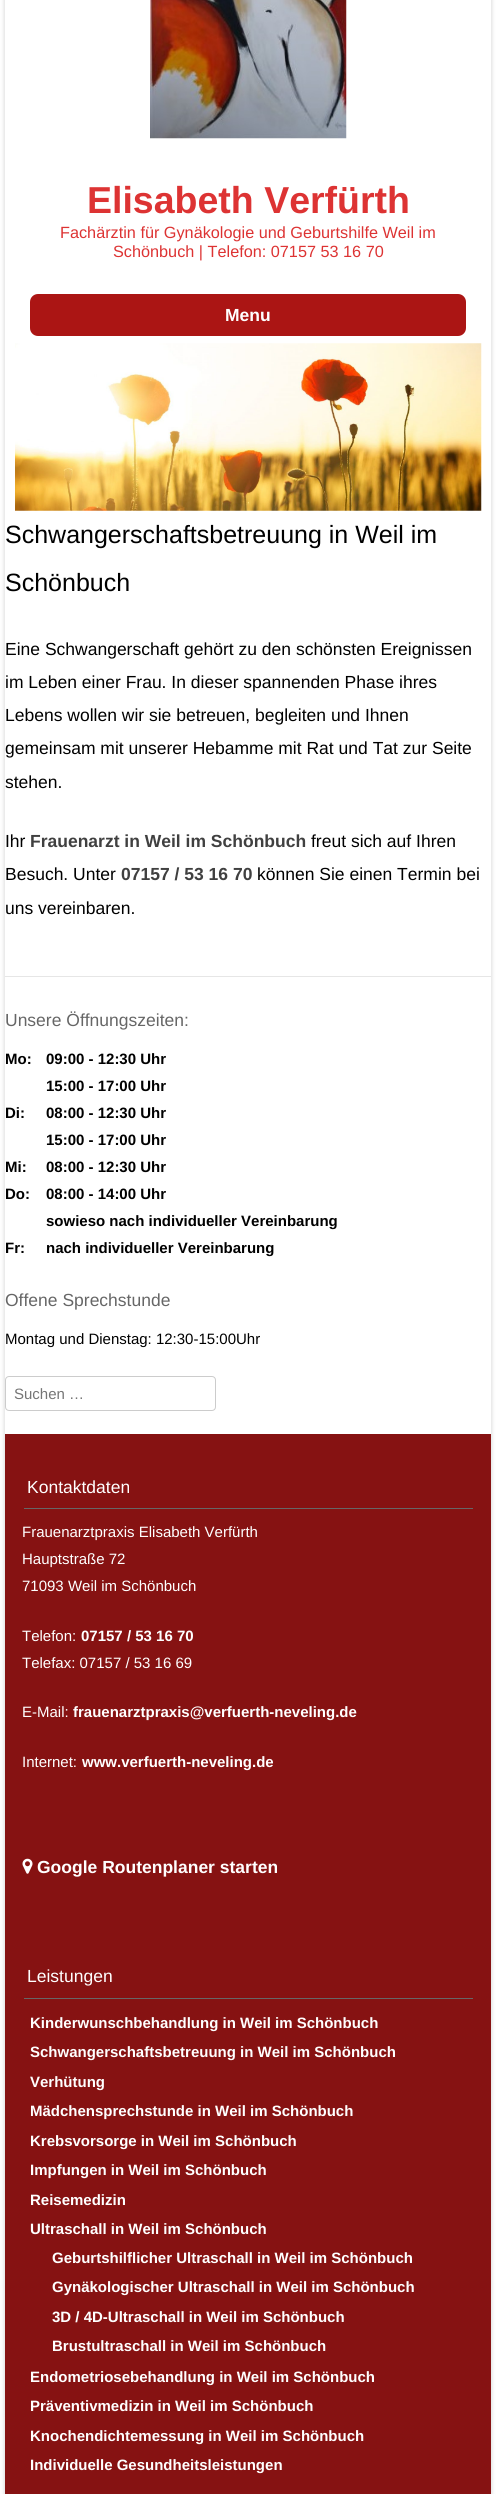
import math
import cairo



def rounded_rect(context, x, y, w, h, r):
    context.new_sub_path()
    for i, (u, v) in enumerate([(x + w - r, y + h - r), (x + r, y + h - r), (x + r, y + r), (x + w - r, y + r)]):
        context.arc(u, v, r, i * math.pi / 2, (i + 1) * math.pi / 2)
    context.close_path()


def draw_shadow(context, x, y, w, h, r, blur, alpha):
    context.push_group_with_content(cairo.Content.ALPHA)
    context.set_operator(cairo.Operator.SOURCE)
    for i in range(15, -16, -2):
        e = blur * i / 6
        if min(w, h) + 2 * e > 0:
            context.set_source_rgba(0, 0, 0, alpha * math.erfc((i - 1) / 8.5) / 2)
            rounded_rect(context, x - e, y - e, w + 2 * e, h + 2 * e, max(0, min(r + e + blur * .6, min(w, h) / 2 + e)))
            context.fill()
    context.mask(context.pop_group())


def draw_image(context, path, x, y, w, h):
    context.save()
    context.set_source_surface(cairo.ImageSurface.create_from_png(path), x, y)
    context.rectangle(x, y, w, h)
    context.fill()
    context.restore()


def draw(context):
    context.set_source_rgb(1, 1, 1)
    context.paint()
    context.set_source_rgb(0, 0, 0)
    draw_shadow(context, 5, -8, 486, 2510, 0, 2.5, 0.2)
    context.set_source_rgb(1, 1, 1)
    context.rectangle(5, 0, 486, 1434)
    context.fill()
    draw_image(context, "images/1.png", 150, 0, 197, 139)
    context.set_source_rgb(171 / 255, 21 / 255, 20 / 255)
    rounded_rect(context, 30, 294, 436, 42, 8)
    context.fill()
    draw_image(context, "images/2.png", 15, 343, 467, 168)
    context.set_source_rgb(230 / 255, 230 / 255, 230 / 255)
    context.rectangle(5, 976, 486, 1)
    context.fill()
    rounded_rect(context, 5.5, 1376.5, 210, 34, 3.5)
    context.set_source_rgb(204 / 255, 204 / 255, 204 / 255)
    context.set_line_width(1)
    context.stroke()
    context.set_source_rgb(134 / 255, 18 / 255, 18 / 255)
    context.rectangle(5, 1434, 486, 1060)
    context.fill()
    context.set_source_rgb(102 / 255, 102 / 255, 102 / 255)
    context.rectangle(24, 1508, 449, 1)
    context.fill()
    draw_image(context, "images/3.png", 22, 1858, 11, 16)
    context.rectangle(24, 1998, 449, 1)
    context.fill()
    context.select_font_face("Liberation Sans", cairo.FontSlant.NORMAL, cairo.FontWeight.BOLD)
    context.set_font_size(37.5)
    context.set_source_rgb(221 / 255, 51 / 255, 51 / 255)
    context.move_to(87, 213)
    context.show_text("Elisabeth Verfürth")
    context.select_font_face("Liberation Sans")
    context.set_font_size(16.25)
    context.move_to(60, 238)
    context.show_text("Fachärztin für Gynäkologie und Geburtshilfe Weil im")
    context.move_to(113, 257)
    context.show_text("Schönbuch | Telefon: 07157 53 16 70")
    context.select_font_face("Liberation Sans", cairo.FontSlant.NORMAL, cairo.FontWeight.BOLD)
    context.set_font_size(17.5)
    context.set_source_rgb(1, 1, 1)
    context.move_to(225, 321)
    context.show_text("Menu")
    context.select_font_face("Liberation Sans")
    context.set_font_size(25)
    context.set_source_rgb(0, 0, 0)
    context.move_to(5, 543)
    context.show_text("Schwangerschaftsbetreuung in Weil im")
    context.move_to(5, 591)
    context.show_text("Schönbuch")
    context.set_font_size(17.5)
    context.move_to(5, 655)
    context.show_text("Eine Schwangerschaft gehört zu den schönsten Ereignissen")
    context.move_to(5, 688)
    context.show_text("im Leben einer Frau. In dieser spannenden Phase ihres")
    context.move_to(5, 721)
    context.show_text("Lebens wollen wir sie betreuen, begleiten und Ihnen")
    context.move_to(5, 754)
    context.show_text("gemeinsam mit unserer Hebamme mit Rat und Tat zur Seite")
    context.move_to(5, 788)
    context.show_text("stehen.")
    context.move_to(5, 847)
    context.show_text("Ihr")
    context.select_font_face("Liberation Sans", cairo.FontSlant.NORMAL, cairo.FontWeight.BOLD)
    context.set_source_rgb(64 / 255, 64 / 255, 64 / 255)
    context.move_to(30, 847)
    context.show_text("Frauenarzt in Weil im Schönbuch")
    context.select_font_face("Liberation Sans")
    context.set_source_rgb(0, 0, 0)
    context.move_to(311, 847)
    context.show_text("freut sich auf Ihren")
    context.move_to(5, 880)
    context.show_text("Besuch. Unter")
    context.select_font_face("Liberation Sans", cairo.FontSlant.NORMAL, cairo.FontWeight.BOLD)
    context.set_source_rgb(64 / 255, 64 / 255, 64 / 255)
    context.move_to(121, 880)
    context.show_text("07157 / 53 16 70")
    context.select_font_face("Liberation Sans")
    context.set_source_rgb(0, 0, 0)
    context.move_to(257, 880)
    context.show_text("können Sie einen Termin bei")
    context.move_to(5, 914)
    context.show_text("uns vereinbaren.")
    context.set_source_rgb(102 / 255, 102 / 255, 102 / 255)
    context.move_to(5, 1026)
    context.show_text("Unsere Öffnungszeiten:")
    context.select_font_face("Liberation Sans", cairo.FontSlant.NORMAL, cairo.FontWeight.BOLD)
    context.set_font_size(15)
    context.set_source_rgb(0, 0, 0)
    context.move_to(5, 1064)
    context.show_text("Mo:")
    context.move_to(46, 1064)
    context.show_text("09:00 - 12:30 Uhr")
    context.move_to(46, 1091)
    context.show_text("15:00 - 17:00 Uhr")
    context.move_to(5, 1118)
    context.show_text("Di:")
    context.move_to(46, 1118)
    context.show_text("08:00 - 12:30 Uhr")
    context.move_to(46, 1145)
    context.show_text("15:00 - 17:00 Uhr")
    context.move_to(5, 1172)
    context.show_text("Mi:")
    context.move_to(46, 1172)
    context.show_text("08:00 - 12:30 Uhr")
    context.move_to(5, 1199)
    context.show_text("Do:")
    context.move_to(46, 1199)
    context.show_text("08:00 - 14:00 Uhr")
    context.move_to(46, 1226)
    context.show_text("sowieso nach individueller Vereinbarung")
    context.move_to(5, 1253)
    context.show_text("Fr:")
    context.move_to(46, 1253)
    context.show_text("nach individueller Vereinbarung")
    context.select_font_face("Liberation Sans")
    context.set_font_size(17.5)
    context.set_source_rgb(102 / 255, 102 / 255, 102 / 255)
    context.move_to(5, 1306)
    context.show_text("Offene Sprechstunde")
    context.set_font_size(15)
    context.set_source_rgb(0, 0, 0)
    context.move_to(5, 1344)
    context.show_text("Montag und Dienstag: 12:30-15:00Uhr")
    context.set_source_rgb(117 / 255, 117 / 255, 117 / 255)
    context.move_to(14, 1399)
    context.show_text("Suchen …")
    context.set_font_size(17.5)
    context.set_source_rgb(1, 1, 1)
    context.move_to(27, 1493)
    context.show_text("Kontaktdaten")
    context.set_font_size(15)
    context.move_to(22, 1537)
    context.show_text("Frauenarztpraxis Elisabeth Verfürth")
    context.move_to(22, 1564)
    context.show_text("Hauptstraße 72")
    context.move_to(22, 1591)
    context.show_text("71093 Weil im Schönbuch")
    context.move_to(22, 1641)
    context.show_text("Telefon:")
    context.select_font_face("Liberation Sans", cairo.FontSlant.NORMAL, cairo.FontWeight.BOLD)
    context.move_to(81, 1641)
    context.show_text("07157 / 53 16 70")
    context.select_font_face("Liberation Sans")
    context.move_to(22, 1668)
    context.show_text("Telefax: 07157 / 53 16 69")
    context.move_to(22, 1717)
    context.show_text("E-Mail:")
    context.select_font_face("Liberation Sans", cairo.FontSlant.NORMAL, cairo.FontWeight.BOLD)
    context.move_to(73, 1717)
    context.show_text("frauenarztpraxis@verfuerth-neveling.de")
    context.select_font_face("Liberation Sans")
    context.move_to(22, 1767)
    context.show_text("Internet:")
    context.select_font_face("Liberation Sans", cairo.FontSlant.NORMAL, cairo.FontWeight.BOLD)
    context.move_to(82, 1767)
    context.show_text("www.verfuerth-neveling.de")
    context.set_font_size(17.5)
    context.move_to(37, 1873)
    context.show_text("Google Routenplaner starten")
    context.select_font_face("Liberation Sans")
    context.move_to(27, 1982)
    context.show_text("Leistungen")
    context.select_font_face("Liberation Sans", cairo.FontSlant.NORMAL, cairo.FontWeight.BOLD)
    context.set_font_size(15)
    context.move_to(30, 2028)
    context.show_text("Kinderwunschbehandlung in Weil im Schönbuch")
    context.move_to(30, 2057)
    context.show_text("Schwangerschaftsbetreuung in Weil im Schönbuch")
    context.move_to(30, 2087)
    context.show_text("Verhütung")
    context.move_to(30, 2116)
    context.show_text("Mädchensprechstunde in Weil im Schönbuch")
    context.move_to(30, 2146)
    context.show_text("Krebsvorsorge in Weil im Schönbuch")
    context.move_to(30, 2175)
    context.show_text("Impfungen in Weil im Schönbuch")
    context.move_to(30, 2205)
    context.show_text("Reisemedizin")
    context.move_to(30, 2234)
    context.show_text("Ultraschall in Weil im Schönbuch")
    context.move_to(52, 2263)
    context.show_text("Geburtshilflicher Ultraschall in Weil im Schönbuch")
    context.move_to(52, 2292)
    context.show_text("Gynäkologischer Ultraschall in Weil im Schönbuch")
    context.move_to(52, 2322)
    context.show_text("3D / 4D-Ultraschall in Weil im Schönbuch")
    context.move_to(52, 2351)
    context.show_text("Brustultraschall in Weil im Schönbuch")
    context.move_to(30, 2382)
    context.show_text("Endometriosebehandlung in Weil im Schönbuch")
    context.move_to(30, 2411)
    context.show_text("Präventivmedizin in Weil im Schönbuch")
    context.move_to(30, 2441)
    context.show_text("Knochendichtemessung in Weil im Schönbuch")
    context.move_to(30, 2470)
    context.show_text("Individuelle Gesundheitsleistungen")


surface = cairo.ImageSurface(cairo.Format.RGB24, 496, 2494)
context = cairo.Context(surface)
options = cairo.FontOptions()
options.set_hint_metrics(cairo.HintMetrics.OFF)
options.set_hint_style(cairo.HintStyle.NONE)
context.set_font_options(options)
context.set_miter_limit(4)
draw(context)
surface.write_to_png("out.png")
